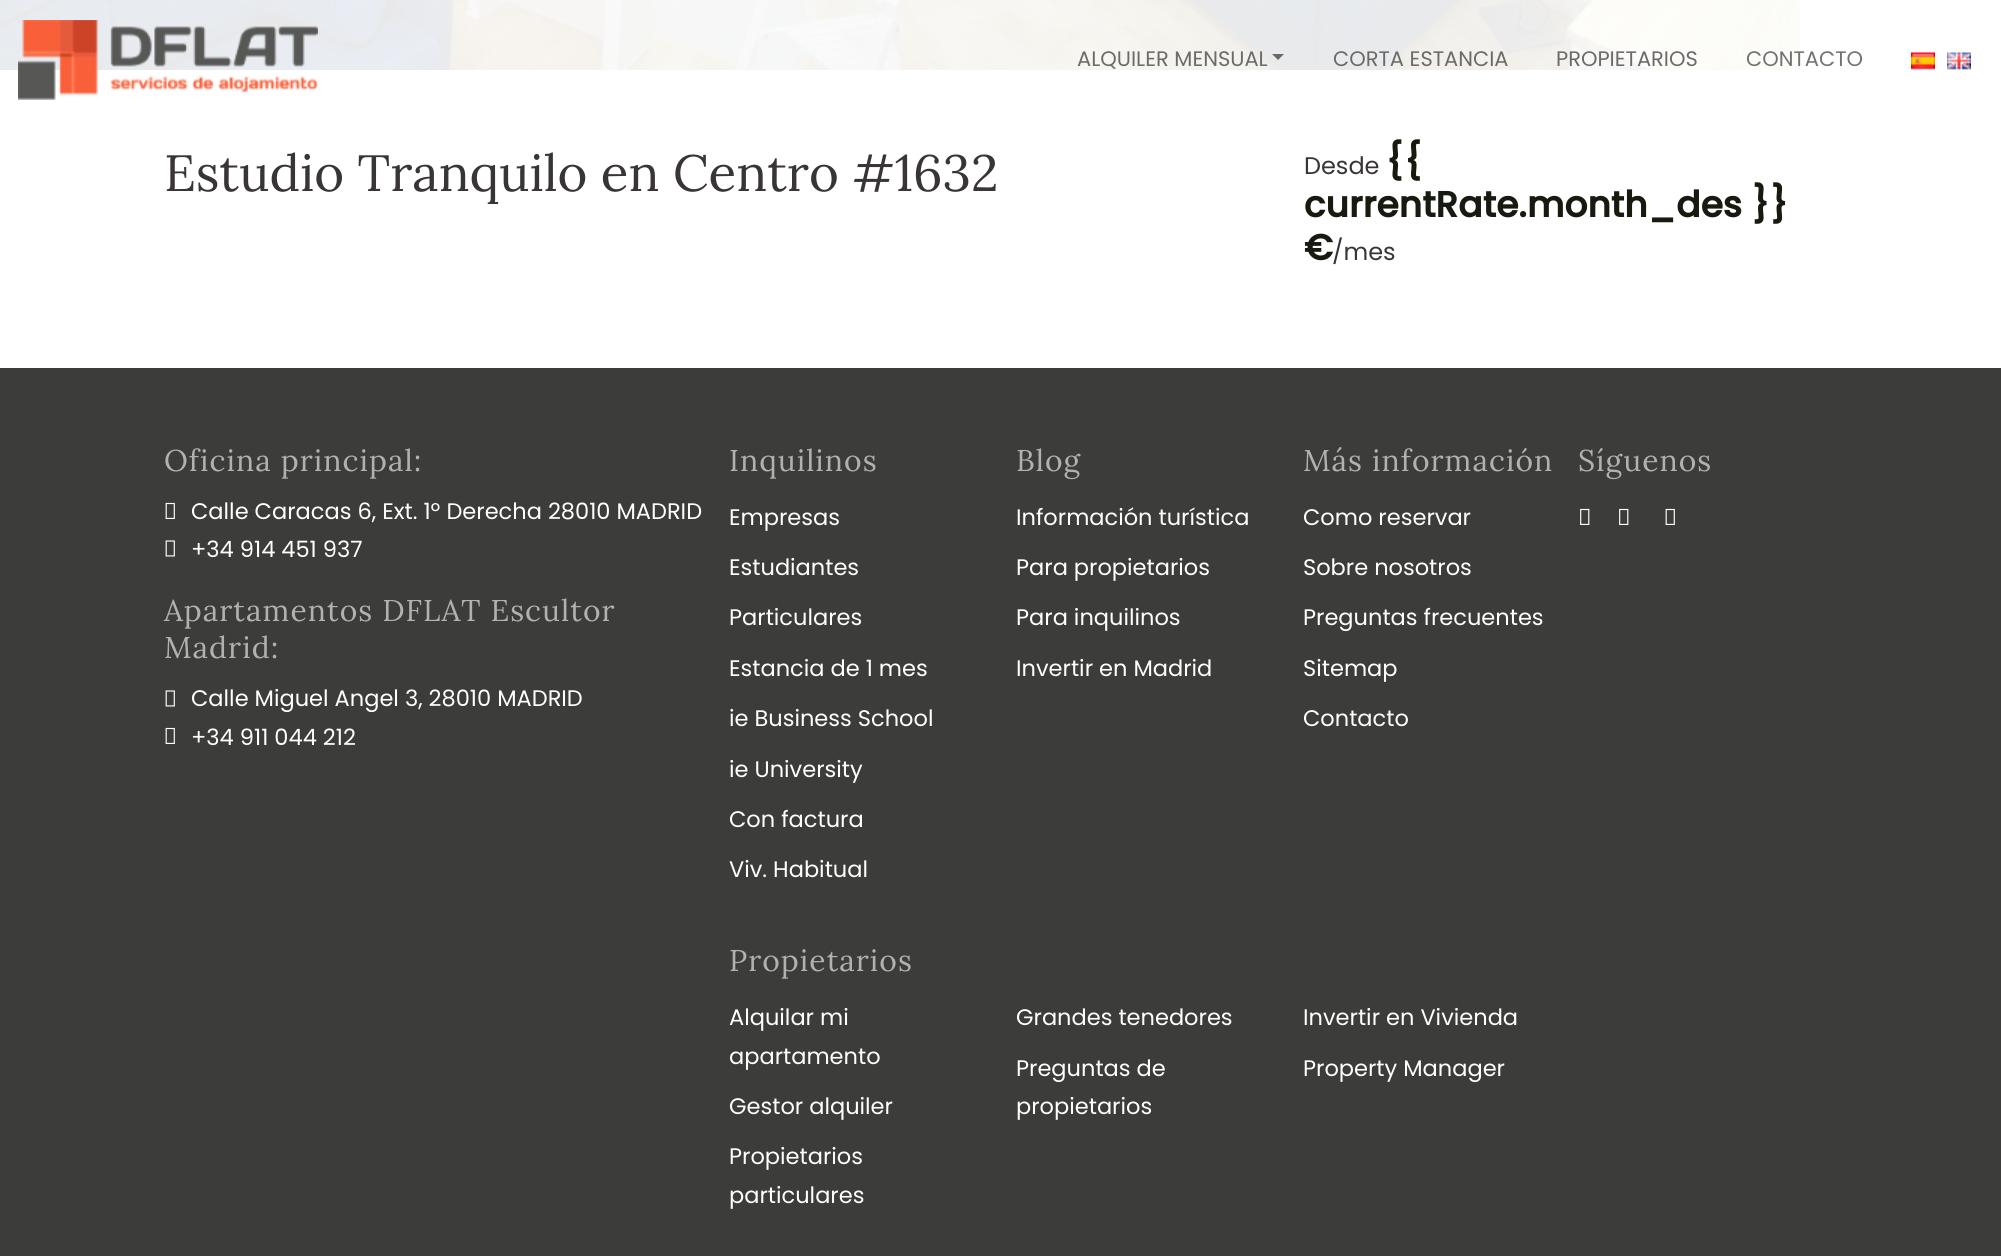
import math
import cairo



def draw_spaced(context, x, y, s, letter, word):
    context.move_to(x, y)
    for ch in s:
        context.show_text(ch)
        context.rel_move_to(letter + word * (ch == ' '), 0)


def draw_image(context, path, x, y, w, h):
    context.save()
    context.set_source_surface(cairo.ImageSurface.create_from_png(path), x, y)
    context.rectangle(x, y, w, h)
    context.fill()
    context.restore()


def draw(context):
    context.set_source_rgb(1, 1, 1)
    context.paint()
    draw_image(context, "images/4.png", 0, 0, 900, 70)
    draw_image(context, "images/1.png", 18, 20, 300, 80)
    draw_image(context, "images/5.png", 900, 0, 900, 70)
    context.set_source_rgb(105 / 255, 105 / 255, 106 / 255)
    context.new_path()
    context.move_to(1272, 54)
    context.line_to(1284, 54)
    context.line_to(1278, 60)
    context.close_path()
    context.fill()
    draw_image(context, "images/2.png", 1911, 52, 24, 18)
    draw_image(context, "images/3.png", 1947, 52, 24, 18)
    context.set_source_rgb(60 / 255, 60 / 255, 59 / 255)
    context.rectangle(0, 368, 2001, 888)
    context.fill()
    draw_image(context, "images/6.png", 165, 502, 10, 17)
    draw_image(context, "images/7.png", 165, 540, 10, 17)
    draw_image(context, "images/7.png", 165, 690, 10, 17)
    draw_image(context, "images/6.png", 165, 727, 10, 17)
    draw_image(context, "images/8.png", 1580, 508, 10, 17)
    draw_image(context, "images/8.png", 1619, 508, 10, 17)
    draw_image(context, "images/6.png", 1665, 508, 10, 17)
    context.select_font_face("Poppins")
    context.set_font_size(21)
    context.set_source_rgb(108 / 255, 107 / 255, 106 / 255)
    context.move_to(1077, 66)
    context.show_text("ALQUILER MENSUAL")
    context.move_to(1333, 66)
    context.show_text("CORTA ESTANCIA")
    context.move_to(1556, 66)
    context.show_text("PROPIETARIOS")
    context.set_source_rgb(114 / 255, 114 / 255, 113 / 255)
    context.move_to(1746, 66)
    context.show_text("CONTACTO")
    context.select_font_face("Lora")
    context.set_font_size(51)
    context.set_source_rgb(57 / 255, 53 / 255, 54 / 255)
    context.move_to(164, 191)
    context.show_text("Estudio Tranquilo en Centro #1632")
    context.select_font_face("Poppins")
    context.set_font_size(24)
    context.move_to(1304, 174)
    context.show_text("Desde")
    context.select_font_face("Poppins", cairo.FontSlant.NORMAL, cairo.FontWeight.BOLD)
    context.set_font_size(36)
    context.set_source_rgb(23 / 255, 26 / 255, 15 / 255)
    context.move_to(1385, 174)
    context.show_text("{{")
    context.move_to(1304, 217)
    context.show_text("currentRate.month_des }}")
    context.move_to(1304, 260)
    context.show_text("€")
    context.select_font_face("Poppins")
    context.set_font_size(24)
    context.set_source_rgb(57 / 255, 53 / 255, 54 / 255)
    context.move_to(1332, 260)
    context.show_text("/mes")
    context.select_font_face("Lora")
    context.set_font_size(30)
    context.set_source_rgb(177 / 255, 177 / 255, 177 / 255)
    draw_spaced(context, 164, 471, "Oficina principal:", 1.05, 0)
    context.select_font_face("Poppins")
    context.set_font_size(22.5)
    context.set_source_rgb(1, 1, 1)
    context.move_to(191, 519)
    context.show_text("Calle Caracas 6, Ext. 1º Derecha 28010 MADRID")
    context.move_to(191, 557)
    context.show_text("+34 914 451 937")
    context.select_font_face("Lora")
    context.set_font_size(30)
    context.set_source_rgb(177 / 255, 177 / 255, 177 / 255)
    draw_spaced(context, 164, 621, "Apartamentos DFLAT Escultor", 1.05, 0)
    draw_spaced(context, 164, 658, "Madrid:", 1.05, 0)
    context.select_font_face("Poppins")
    context.set_font_size(22.5)
    context.set_source_rgb(1, 1, 1)
    context.move_to(191, 706)
    context.show_text("Calle Miguel Angel 3, 28010 MADRID")
    context.move_to(191, 745)
    context.show_text("+34 911 044 212")
    context.select_font_face("Lora")
    context.set_font_size(30)
    context.set_source_rgb(177 / 255, 177 / 255, 177 / 255)
    draw_spaced(context, 729, 471, "Inquilinos", 1.05, 0)
    context.select_font_face("Poppins")
    context.set_font_size(22.5)
    context.set_source_rgb(1, 1, 1)
    context.move_to(729, 525)
    context.show_text("Empresas")
    context.move_to(729, 575)
    context.show_text("Estudiantes")
    context.move_to(729, 625)
    context.show_text("Particulares")
    context.move_to(729, 676)
    context.show_text("Estancia de 1 mes")
    context.move_to(729, 726)
    context.show_text("ie Business School")
    context.move_to(729, 777)
    context.show_text("ie University")
    context.move_to(729, 827)
    context.show_text("Con factura")
    context.move_to(729, 877)
    context.show_text("Viv. Habitual")
    context.select_font_face("Lora")
    context.set_font_size(30)
    context.set_source_rgb(177 / 255, 177 / 255, 177 / 255)
    draw_spaced(context, 1016, 471, "Blog", 1.05, 0)
    context.select_font_face("Poppins")
    context.set_font_size(22.5)
    context.set_source_rgb(1, 1, 1)
    context.move_to(1016, 525)
    context.show_text("Información turística")
    context.move_to(1016, 575)
    context.show_text("Para propietarios")
    context.move_to(1016, 625)
    context.show_text("Para inquilinos")
    context.move_to(1016, 676)
    context.show_text("Invertir en Madrid")
    context.select_font_face("Lora")
    context.set_font_size(30)
    context.set_source_rgb(177 / 255, 177 / 255, 177 / 255)
    draw_spaced(context, 1303, 471, "Más información", 1.05, 0)
    context.select_font_face("Poppins")
    context.set_font_size(22.5)
    context.set_source_rgb(1, 1, 1)
    context.move_to(1303, 525)
    context.show_text("Como reservar")
    context.move_to(1303, 575)
    context.show_text("Sobre nosotros")
    context.move_to(1303, 625)
    context.show_text("Preguntas frecuentes")
    context.move_to(1303, 676)
    context.show_text("Sitemap")
    context.move_to(1303, 726)
    context.show_text("Contacto")
    context.select_font_face("Lora")
    context.set_font_size(30)
    context.set_source_rgb(177 / 255, 177 / 255, 177 / 255)
    draw_spaced(context, 729, 971, "Propietarios", 1.05, 0)
    context.select_font_face("Poppins")
    context.set_font_size(22.5)
    context.set_source_rgb(1, 1, 1)
    context.move_to(729, 1025)
    context.show_text("Alquilar mi")
    context.move_to(729, 1064)
    context.show_text("apartamento")
    context.move_to(729, 1114)
    context.show_text("Gestor alquiler")
    context.move_to(729, 1164)
    context.show_text("Propietarios")
    context.move_to(729, 1203)
    context.show_text("particulares")
    context.move_to(1016, 1025)
    context.show_text("Grandes tenedores")
    context.move_to(1016, 1076)
    context.show_text("Preguntas de")
    context.move_to(1016, 1114)
    context.show_text("propietarios")
    context.move_to(1303, 1025)
    context.show_text("Invertir en Vivienda")
    context.move_to(1303, 1076)
    context.show_text("Property Manager")
    context.select_font_face("Lora")
    context.set_font_size(30)
    context.set_source_rgb(177 / 255, 177 / 255, 177 / 255)
    draw_spaced(context, 1578, 471, "Síguenos", 1.05, 0)


surface = cairo.ImageSurface(cairo.Format.RGB24, 2001, 1256)
context = cairo.Context(surface)
options = cairo.FontOptions()
options.set_hint_metrics(cairo.HintMetrics.OFF)
options.set_hint_style(cairo.HintStyle.NONE)
context.set_font_options(options)
context.set_miter_limit(4)
draw(context)
surface.write_to_png("out.png")
